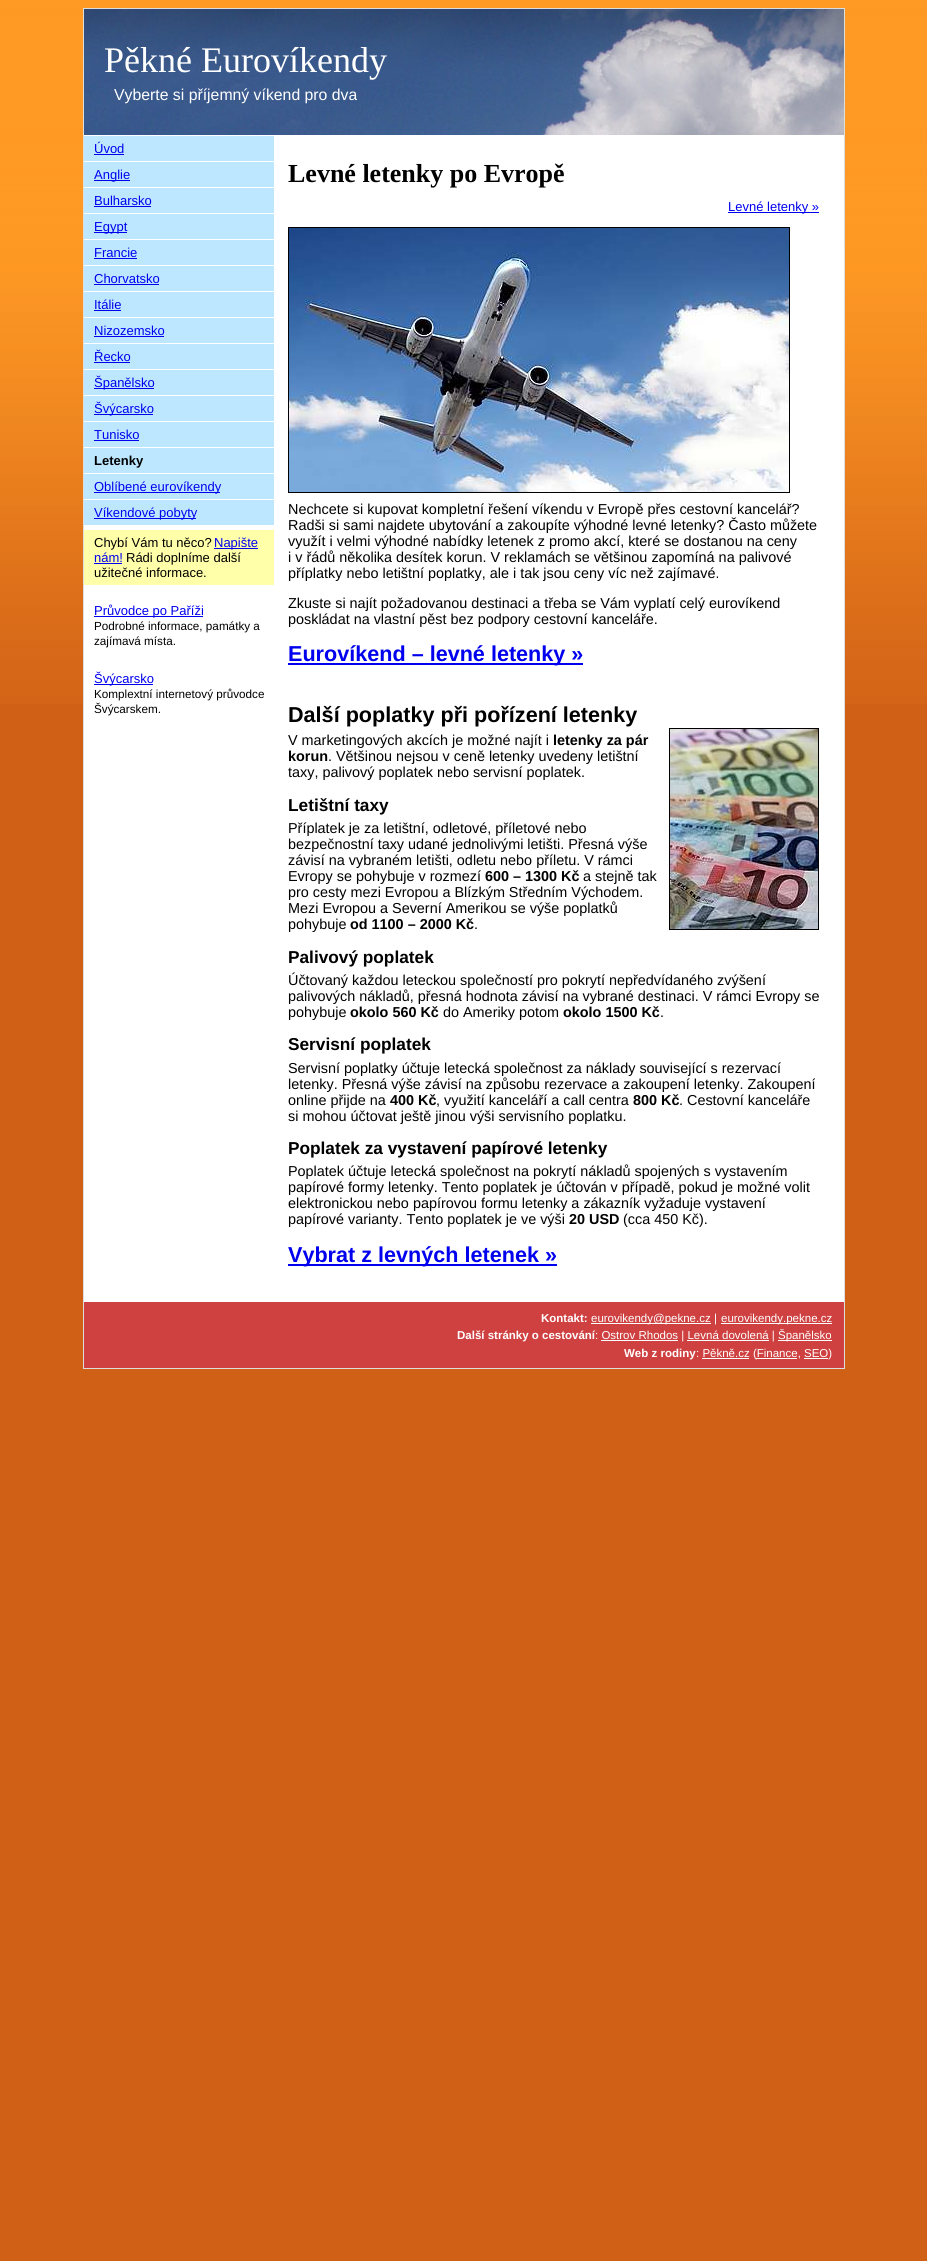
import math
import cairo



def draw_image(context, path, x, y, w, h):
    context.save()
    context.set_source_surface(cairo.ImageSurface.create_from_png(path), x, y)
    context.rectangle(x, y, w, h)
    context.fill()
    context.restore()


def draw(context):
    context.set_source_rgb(207 / 255, 96 / 255, 22 / 255)
    context.paint()
    draw_image(context, "images/1.png", 0, 0, 927, 704)
    context.rectangle(83.5, 8.5, 761, 1360)
    context.set_source_rgb(221 / 255, 221 / 255, 221 / 255)
    context.set_line_width(1)
    context.stroke()
    context.set_source_rgb(1, 1, 1)
    context.rectangle(84, 135, 760, 1167)
    context.fill()
    draw_image(context, "images/2.png", 84, 9, 760, 126)
    context.set_source_rgb(189 / 255, 231 / 255, 1)
    context.rectangle(84, 136, 190, 25)
    context.fill()
    context.set_source_rgb(0, 0, 238 / 255)
    context.rectangle(94, 154, 30, 1)
    context.fill()
    context.set_source_rgb(189 / 255, 231 / 255, 1)
    context.rectangle(84, 162, 190, 25)
    context.fill()
    context.set_source_rgb(0, 0, 238 / 255)
    context.rectangle(94, 180, 36, 1)
    context.fill()
    context.set_source_rgb(189 / 255, 231 / 255, 1)
    context.rectangle(84, 188, 190, 25)
    context.fill()
    context.set_source_rgb(0, 0, 238 / 255)
    context.rectangle(94, 206, 57, 1)
    context.fill()
    context.set_source_rgb(189 / 255, 231 / 255, 1)
    context.rectangle(84, 214, 190, 25)
    context.fill()
    context.set_source_rgb(0, 0, 238 / 255)
    context.rectangle(94, 232, 33, 1)
    context.fill()
    context.set_source_rgb(189 / 255, 231 / 255, 1)
    context.rectangle(84, 240, 190, 25)
    context.fill()
    context.set_source_rgb(0, 0, 238 / 255)
    context.rectangle(94, 258, 43, 1)
    context.fill()
    context.set_source_rgb(189 / 255, 231 / 255, 1)
    context.rectangle(84, 266, 190, 25)
    context.fill()
    context.set_source_rgb(0, 0, 238 / 255)
    context.rectangle(94, 284, 65, 1)
    context.fill()
    context.set_source_rgb(189 / 255, 231 / 255, 1)
    context.rectangle(84, 292, 190, 25)
    context.fill()
    context.set_source_rgb(0, 0, 238 / 255)
    context.rectangle(94, 310, 27, 1)
    context.fill()
    context.set_source_rgb(189 / 255, 231 / 255, 1)
    context.rectangle(84, 318, 190, 25)
    context.fill()
    context.set_source_rgb(0, 0, 238 / 255)
    context.rectangle(94, 336, 70, 1)
    context.fill()
    context.set_source_rgb(189 / 255, 231 / 255, 1)
    context.rectangle(84, 344, 190, 25)
    context.fill()
    context.set_source_rgb(0, 0, 238 / 255)
    context.rectangle(94, 362, 36, 1)
    context.fill()
    context.set_source_rgb(189 / 255, 231 / 255, 1)
    context.rectangle(84, 370, 190, 25)
    context.fill()
    context.set_source_rgb(0, 0, 238 / 255)
    context.rectangle(94, 388, 60, 1)
    context.fill()
    context.set_source_rgb(189 / 255, 231 / 255, 1)
    context.rectangle(84, 396, 190, 25)
    context.fill()
    context.set_source_rgb(0, 0, 238 / 255)
    context.rectangle(94, 414, 59, 1)
    context.fill()
    context.set_source_rgb(189 / 255, 231 / 255, 1)
    context.rectangle(84, 422, 190, 25)
    context.fill()
    context.set_source_rgb(0, 0, 238 / 255)
    context.rectangle(94, 440, 45, 1)
    context.fill()
    context.set_source_rgb(189 / 255, 231 / 255, 1)
    context.rectangle(84, 448, 190, 25)
    context.fill()
    context.rectangle(84, 474, 190, 25)
    context.fill()
    context.set_source_rgb(0, 0, 238 / 255)
    context.rectangle(94, 492, 126, 1)
    context.fill()
    context.set_source_rgb(189 / 255, 231 / 255, 1)
    context.rectangle(84, 500, 190, 25)
    context.fill()
    context.set_source_rgb(0, 0, 238 / 255)
    context.rectangle(94, 518, 102, 1)
    context.fill()
    context.set_source_rgb(1, 1, 170 / 255)
    context.rectangle(84, 530, 190, 55)
    context.fill()
    context.set_source_rgb(0, 0, 238 / 255)
    context.rectangle(214, 548, 44, 1)
    context.fill()
    context.rectangle(94, 563, 28, 1)
    context.fill()
    context.rectangle(94, 616, 109, 1)
    context.fill()
    context.rectangle(94, 684, 59, 1)
    context.fill()
    context.rectangle(728, 212, 91, 1)
    context.fill()
    context.rectangle(288.5, 227.5, 501, 265)
    context.set_source_rgb(0, 0, 0)
    context.stroke()
    draw_image(context, "images/3.png", 289, 228, 500, 264)
    context.set_source_rgb(0, 0, 238 / 255)
    context.rectangle(288, 663, 295, 2)
    context.fill()
    context.rectangle(669.5, 728.5, 149, 201)
    context.set_source_rgb(0, 0, 0)
    context.stroke()
    draw_image(context, "images/4.png", 670, 729, 148, 200)
    context.set_source_rgb(0, 0, 238 / 255)
    context.rectangle(288, 1264, 269, 2)
    context.fill()
    context.set_source_rgb(207 / 255, 65 / 255, 65 / 255)
    context.rectangle(84, 1302, 760, 66)
    context.fill()
    context.set_source_rgb(1, 1, 1)
    context.rectangle(591, 1323, 120, 1)
    context.fill()
    context.rectangle(721, 1323, 111, 1)
    context.fill()
    context.rectangle(778, 1340, 54, 1)
    context.fill()
    context.rectangle(601, 1340, 77, 1)
    context.fill()
    context.rectangle(687, 1340, 82, 1)
    context.fill()
    context.rectangle(702, 1358, 47, 1)
    context.fill()
    context.rectangle(756, 1358, 41, 1)
    context.fill()
    context.rectangle(804, 1358, 24, 1)
    context.fill()
    context.select_font_face("Liberation Serif")
    context.set_font_size(36)
    context.move_to(104, 72)
    context.show_text("Pěkné Eurovíkendy")
    context.select_font_face("Liberation Sans")
    context.set_font_size(15.8)
    context.move_to(114, 100)
    context.show_text("Vyberte si příjemný víkend pro dva")
    context.set_font_size(13)
    context.set_source_rgb(0, 0, 238 / 255)
    context.move_to(94, 153)
    context.show_text("Úvod")
    context.move_to(94, 179)
    context.show_text("Anglie")
    context.move_to(94, 205)
    context.show_text("Bulharsko")
    context.move_to(94, 231)
    context.show_text("Egypt")
    context.move_to(94, 257)
    context.show_text("Francie")
    context.move_to(94, 283)
    context.show_text("Chorvatsko")
    context.move_to(94, 309)
    context.show_text("Itálie")
    context.move_to(94, 335)
    context.show_text("Nizozemsko")
    context.move_to(94, 361)
    context.show_text("Řecko")
    context.move_to(94, 387)
    context.show_text("Španělsko")
    context.move_to(94, 413)
    context.show_text("Švýcarsko")
    context.move_to(94, 439)
    context.show_text("Tunisko")
    context.select_font_face("Liberation Sans", cairo.FontSlant.NORMAL, cairo.FontWeight.BOLD)
    context.set_source_rgb(0, 0, 0)
    context.move_to(94, 465)
    context.show_text("Letenky")
    context.select_font_face("Liberation Sans")
    context.set_source_rgb(0, 0, 238 / 255)
    context.move_to(94, 491)
    context.show_text("Oblíbené eurovíkendy")
    context.move_to(94, 517)
    context.show_text("Víkendové pobyty")
    context.set_source_rgb(0, 0, 0)
    context.move_to(94, 547)
    context.show_text("Chybí Vám tu něco?")
    context.set_source_rgb(0, 0, 238 / 255)
    context.move_to(214, 547)
    context.show_text("Napište")
    context.move_to(94, 562)
    context.show_text("nám!")
    context.set_source_rgb(0, 0, 0)
    context.move_to(126, 562)
    context.show_text("Rádi doplníme další")
    context.move_to(94, 577)
    context.show_text("užitečné informace.")
    context.set_source_rgb(0, 0, 238 / 255)
    context.move_to(94, 615)
    context.show_text("Průvodce po Paříži")
    context.set_font_size(11.7)
    context.set_source_rgb(0, 0, 0)
    context.move_to(94, 630)
    context.show_text("Podrobné informace, památky a")
    context.move_to(94, 645)
    context.show_text("zajímavá místa.")
    context.set_font_size(13)
    context.set_source_rgb(0, 0, 238 / 255)
    context.move_to(94, 683)
    context.show_text("Švýcarsko")
    context.set_font_size(11.7)
    context.set_source_rgb(0, 0, 0)
    context.move_to(94, 698)
    context.show_text("Komplextní internetový průvodce")
    context.move_to(94, 713)
    context.show_text("Švýcarskem.")
    context.select_font_face("Liberation Serif", cairo.FontSlant.NORMAL, cairo.FontWeight.BOLD)
    context.set_font_size(26)
    context.move_to(288, 182)
    context.show_text("Levné letenky po Evropě")
    context.select_font_face("Liberation Sans")
    context.set_font_size(13)
    context.set_source_rgb(0, 0, 238 / 255)
    context.move_to(728, 211)
    context.show_text("Levné letenky »")
    context.set_font_size(14.4)
    context.set_source_rgb(0, 0, 0)
    context.move_to(288, 514)
    context.show_text("Nechcete si kupovat kompletní řešení víkendu v Evropě přes cestovní kancelář?")
    context.move_to(288, 530)
    context.show_text("Radši si sami najdete ubytování a zakoupíte výhodné levné letenky? Často můžete")
    context.move_to(288, 546)
    context.show_text("využít i velmi výhodné nabídky letenek z promo akcí, které se dostanou na ceny")
    context.move_to(288, 562)
    context.show_text("i v řádů několika desítek korun. V reklamách se většinou zapomíná na palivové")
    context.move_to(288, 578)
    context.show_text("příplatky nebo letištní poplatky, ale i tak jsou ceny víc než zajímavé.")
    context.move_to(288, 608)
    context.show_text("Zkuste si najít požadovanou destinaci a třeba se Vám vyplatí celý eurovíkend")
    context.move_to(288, 624)
    context.show_text("poskládat na vlastní pěst bez podpory cestovní kanceláře.")
    context.select_font_face("Liberation Sans", cairo.FontSlant.NORMAL, cairo.FontWeight.BOLD)
    context.set_font_size(21.6)
    context.set_source_rgb(0, 0, 238 / 255)
    context.move_to(288, 661)
    context.show_text("Eurovíkend – levné letenky »")
    context.set_source_rgb(0, 0, 0)
    context.move_to(288, 722)
    context.show_text("Další poplatky při pořízení letenky")
    context.select_font_face("Liberation Sans")
    context.set_font_size(14.4)
    context.move_to(288, 745)
    context.show_text("V marketingových akcích je možné najít i")
    context.select_font_face("Liberation Sans", cairo.FontSlant.NORMAL, cairo.FontWeight.BOLD)
    context.move_to(553, 745)
    context.show_text("letenky za pár")
    context.move_to(288, 761)
    context.show_text("korun")
    context.select_font_face("Liberation Sans")
    context.move_to(328, 761)
    context.show_text(". Většinou nejsou v ceně letenky uvedeny letištní")
    context.move_to(288, 777)
    context.show_text("taxy, palivový poplatek nebo servisní poplatek.")
    context.select_font_face("Liberation Sans", cairo.FontSlant.NORMAL, cairo.FontWeight.BOLD)
    context.set_font_size(17.25)
    context.move_to(288, 811)
    context.show_text("Letištní taxy")
    context.select_font_face("Liberation Sans")
    context.set_font_size(14.4)
    context.move_to(288, 833)
    context.show_text("Příplatek je za letištní, odletové, příletové nebo")
    context.move_to(288, 849)
    context.show_text("bezpečnostní taxy udané jednolivými letišti. Přesná výše")
    context.move_to(288, 865)
    context.show_text("závisí na vybraném letišti, odletu nebo příletu. V rámci")
    context.move_to(288, 881)
    context.show_text("Evropy se pohybuje v rozmezí")
    context.select_font_face("Liberation Sans", cairo.FontSlant.NORMAL, cairo.FontWeight.BOLD)
    context.move_to(485, 881)
    context.show_text("600 – 1300 Kč")
    context.select_font_face("Liberation Sans")
    context.move_to(583, 881)
    context.show_text("a stejně tak")
    context.move_to(288, 897)
    context.show_text("pro cesty mezi Evropou a Blízkým Středním Východem.")
    context.move_to(288, 913)
    context.show_text("Mezi Evropou a Severní Amerikou se výše poplatků")
    context.move_to(288, 929)
    context.show_text("pohybuje")
    context.select_font_face("Liberation Sans", cairo.FontSlant.NORMAL, cairo.FontWeight.BOLD)
    context.move_to(350, 929)
    context.show_text("od 1100 – 2000 Kč")
    context.select_font_face("Liberation Sans")
    context.move_to(474, 929)
    context.show_text(".")
    context.select_font_face("Liberation Sans", cairo.FontSlant.NORMAL, cairo.FontWeight.BOLD)
    context.set_font_size(17.25)
    context.move_to(288, 963)
    context.show_text("Palivový poplatek")
    context.select_font_face("Liberation Sans")
    context.set_font_size(14.4)
    context.move_to(288, 985)
    context.show_text("Účtovaný každou leteckou společností pro pokrytí nepředvídaného zvýšení")
    context.move_to(288, 1001)
    context.show_text("palivových nákladů, přesná hodnota závisí na vybrané destinaci. V rámci Evropy se")
    context.move_to(288, 1017)
    context.show_text("pohybuje")
    context.select_font_face("Liberation Sans", cairo.FontSlant.NORMAL, cairo.FontWeight.BOLD)
    context.move_to(350, 1017)
    context.show_text("okolo 560 Kč")
    context.select_font_face("Liberation Sans")
    context.move_to(443, 1017)
    context.show_text("do Ameriky potom")
    context.select_font_face("Liberation Sans", cairo.FontSlant.NORMAL, cairo.FontWeight.BOLD)
    context.move_to(563, 1017)
    context.show_text("okolo 1500 Kč")
    context.select_font_face("Liberation Sans")
    context.move_to(660, 1017)
    context.show_text(".")
    context.select_font_face("Liberation Sans", cairo.FontSlant.NORMAL, cairo.FontWeight.BOLD)
    context.set_font_size(17.25)
    context.move_to(288, 1050)
    context.show_text("Servisní poplatek")
    context.select_font_face("Liberation Sans")
    context.set_font_size(14.4)
    context.move_to(288, 1073)
    context.show_text("Servisní poplatky účtuje letecká společnost za náklady související s rezervací")
    context.move_to(288, 1089)
    context.show_text("letenky. Přesná výše závisí na způsobu rezervace a zakoupení letenky. Zakoupení")
    context.move_to(288, 1105)
    context.show_text("online přijde na")
    context.select_font_face("Liberation Sans", cairo.FontSlant.NORMAL, cairo.FontWeight.BOLD)
    context.move_to(390, 1105)
    context.show_text("400 Kč")
    context.select_font_face("Liberation Sans")
    context.move_to(436, 1105)
    context.show_text(", využití kanceláří a call centra")
    context.select_font_face("Liberation Sans", cairo.FontSlant.NORMAL, cairo.FontWeight.BOLD)
    context.move_to(633, 1105)
    context.show_text("800 Kč")
    context.select_font_face("Liberation Sans")
    context.move_to(679, 1105)
    context.show_text(". Cestovní kanceláře")
    context.move_to(288, 1121)
    context.show_text("si mohou účtovat ještě jinou výši servisního poplatku.")
    context.select_font_face("Liberation Sans", cairo.FontSlant.NORMAL, cairo.FontWeight.BOLD)
    context.set_font_size(17.25)
    context.move_to(288, 1154)
    context.show_text("Poplatek za vystavení papírové letenky")
    context.select_font_face("Liberation Sans")
    context.set_font_size(14.4)
    context.move_to(288, 1176)
    context.show_text("Poplatek účtuje letecká společnost na pokrytí nákladů spojených s vystavením")
    context.move_to(288, 1192)
    context.show_text("papírové formy letenky. Tento poplatek je účtován v případě, pokud je možné volit")
    context.move_to(288, 1208)
    context.show_text("elektronickou nebo papírovou formu letenky a zákazník vyžaduje vystavení")
    context.move_to(288, 1224)
    context.show_text("papírové varianty. Tento poplatek je ve výši")
    context.select_font_face("Liberation Sans", cairo.FontSlant.NORMAL, cairo.FontWeight.BOLD)
    context.move_to(569, 1224)
    context.show_text("20 USD")
    context.select_font_face("Liberation Sans")
    context.move_to(623, 1224)
    context.show_text("(cca 450 Kč).")
    context.select_font_face("Liberation Sans", cairo.FontSlant.NORMAL, cairo.FontWeight.BOLD)
    context.set_font_size(21.6)
    context.set_source_rgb(0, 0, 238 / 255)
    context.move_to(288, 1262)
    context.show_text("Vybrat z levných letenek »")
    context.set_font_size(11.5)
    context.set_source_rgb(1, 1, 1)
    context.move_to(541, 1322)
    context.show_text("Kontakt:")
    context.select_font_face("Liberation Sans")
    context.move_to(591, 1322)
    context.show_text("eurovikendy@pekne.cz |")
    context.move_to(721, 1322)
    context.show_text("eurovikendy.pekne.cz")
    context.select_font_face("Liberation Sans", cairo.FontSlant.NORMAL, cairo.FontWeight.BOLD)
    context.move_to(457, 1339)
    context.show_text("Další stránky o cestování")
    context.select_font_face("Liberation Sans")
    context.move_to(595, 1339)
    context.show_text(": Ostrov Rhodos | Levná dovolená |")
    context.move_to(778, 1339)
    context.show_text("Španělsko")
    context.select_font_face("Liberation Sans", cairo.FontSlant.NORMAL, cairo.FontWeight.BOLD)
    context.move_to(624, 1357)
    context.show_text("Web z rodiny")
    context.select_font_face("Liberation Sans")
    context.move_to(696, 1357)
    context.show_text(": Pěkně.cz (Finance, SEO)")


surface = cairo.ImageSurface(cairo.Format.RGB24, 927, 2261)
context = cairo.Context(surface)
options = cairo.FontOptions()
options.set_hint_metrics(cairo.HintMetrics.OFF)
options.set_hint_style(cairo.HintStyle.NONE)
context.set_font_options(options)
context.set_miter_limit(4)
draw(context)
surface.write_to_png("out.png")
